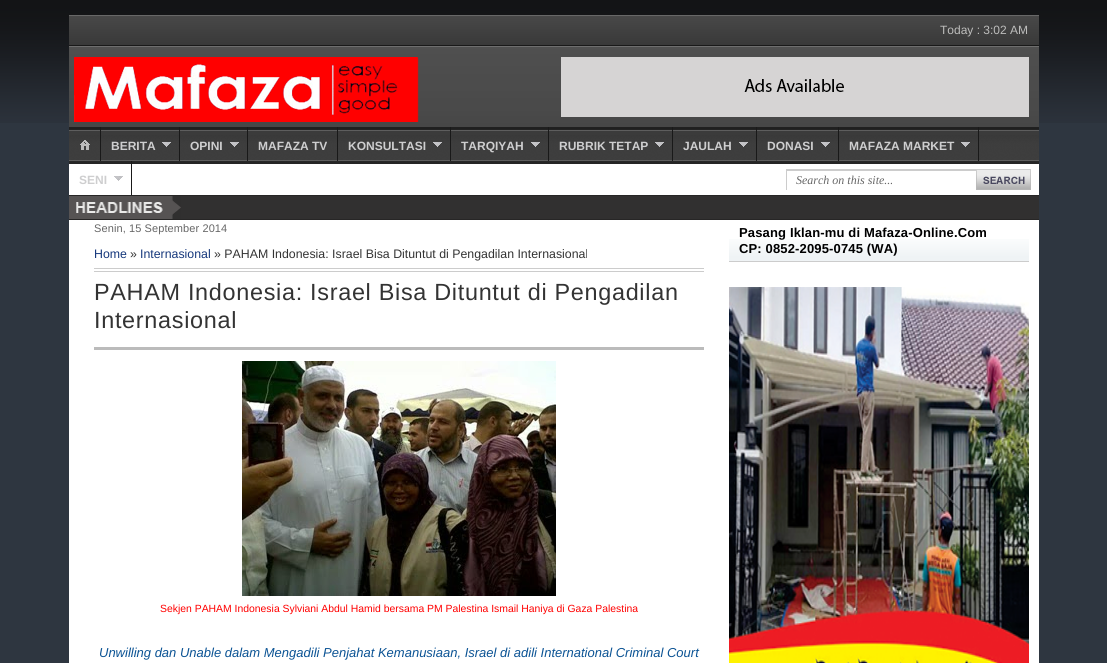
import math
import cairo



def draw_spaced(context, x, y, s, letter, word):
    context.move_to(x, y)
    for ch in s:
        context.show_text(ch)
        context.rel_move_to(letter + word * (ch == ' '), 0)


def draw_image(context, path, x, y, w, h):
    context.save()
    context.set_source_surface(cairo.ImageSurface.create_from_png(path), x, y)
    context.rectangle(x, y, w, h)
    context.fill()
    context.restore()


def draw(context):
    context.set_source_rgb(46 / 255, 54 / 255, 64 / 255)
    context.paint()
    draw_image(context, "images/1.png", 0, 0, 1107, 123)
    context.set_source_rgb(1, 1, 1)
    context.rectangle(69, 164, 970, 499)
    context.fill()
    draw_image(context, "images/2.png", 69, 15, 970, 30)
    context.set_source_rgb(25 / 255, 25 / 255, 25 / 255)
    context.rectangle(69, 45, 970, 1)
    context.fill()
    draw_image(context, "images/3.png", 69, 46, 970, 81)
    draw_image(context, "images/4.png", 74, 57, 345, 65)
    draw_image(context, "images/5.png", 561, 57, 468, 60)
    draw_image(context, "images/6.png", 69, 127, 970, 37)
    context.rectangle(100, 127, 1, 34)
    context.fill()
    draw_image(context, "images/7.png", 80, 140, 10, 10)
    draw_image(context, "images/8.png", 162, 142, 9, 5)
    context.rectangle(179, 127, 1, 34)
    context.fill()
    draw_image(context, "images/9.png", 230, 142, 9, 5)
    context.rectangle(247, 127, 1, 34)
    context.fill()
    context.rectangle(337, 127, 1, 34)
    context.fill()
    draw_image(context, "images/10.png", 433, 142, 9, 5)
    context.rectangle(450, 127, 1, 34)
    context.fill()
    draw_image(context, "images/11.png", 531, 142, 9, 5)
    context.rectangle(548, 127, 1, 34)
    context.fill()
    draw_image(context, "images/12.png", 655, 142, 9, 5)
    context.rectangle(672, 127, 1, 34)
    context.fill()
    draw_image(context, "images/13.png", 739, 142, 9, 5)
    context.rectangle(756, 127, 1, 34)
    context.fill()
    draw_image(context, "images/14.png", 821, 142, 9, 5)
    context.rectangle(838, 127, 1, 34)
    context.fill()
    draw_image(context, "images/10.png", 961, 142, 9, 5)
    context.rectangle(978, 127, 1, 34)
    context.fill()
    draw_image(context, "images/15.png", 114, 176, 9, 5)
    context.rectangle(131, 161, 1, 34)
    context.fill()
    draw_image(context, "images/16.png", 786, 169, 190, 21)
    draw_image(context, "images/17.png", 976, 169, 55, 21)
    context.set_source_rgb(49 / 255, 48 / 255, 48 / 255)
    context.rectangle(181, 196, 858, 23)
    context.fill()
    draw_image(context, "images/18.png", 69, 196, 112, 23)
    context.set_source_rgb(39 / 255, 38 / 255, 38 / 255)
    context.rectangle(69, 195, 970, 1)
    context.fill()
    context.rectangle(69, 219, 970, 1)
    context.fill()
    context.set_source_rgb(204 / 255, 204 / 255, 204 / 255)
    context.rectangle(94, 268, 610, 1)
    context.fill()
    context.rectangle(94, 271, 610, 1)
    context.fill()
    context.set_source_rgb(187 / 255, 187 / 255, 187 / 255)
    context.rectangle(94, 347, 610, 3)
    context.fill()
    draw_image(context, "images/19.png", 242, 361, 314, 235)
    draw_image(context, "images/20.png", 729, 239, 300, 22)
    context.set_source_rgb(204 / 255, 204 / 255, 204 / 255)
    context.rectangle(729, 261, 300, 1)
    context.fill()
    draw_image(context, "images/21.png", 729, 287, 300, 376)
    context.select_font_face("Liberation Sans")
    context.set_font_size(12)
    context.set_source_rgb(189 / 255, 189 / 255, 188 / 255)
    context.move_to(940, 34)
    context.show_text("Today : 3:02 AM")
    context.select_font_face("Liberation Sans", cairo.FontSlant.NORMAL, cairo.FontWeight.BOLD)
    context.set_source_rgb(206 / 255, 206 / 255, 207 / 255)
    context.move_to(111, 150)
    context.show_text("BERITA")
    context.move_to(190, 150)
    context.show_text("OPINI")
    context.move_to(258, 150)
    context.show_text("MAFAZA TV")
    context.move_to(348, 150)
    context.show_text("KONSULTASI")
    context.move_to(461, 150)
    context.show_text("TARQIYAH")
    context.move_to(559, 150)
    context.show_text("RUBRIK TETAP")
    context.move_to(683, 150)
    context.show_text("JAULAH")
    context.move_to(767, 150)
    context.show_text("DONASI")
    context.move_to(849, 150)
    context.show_text("MAFAZA MARKET")
    context.move_to(79, 184)
    context.show_text("SENI")
    context.select_font_face("Liberation Serif", cairo.FontSlant.ITALIC)
    context.set_source_rgb(102 / 255, 102 / 255, 102 / 255)
    context.move_to(796, 184)
    context.show_text("Search on this site...")
    context.select_font_face("Liberation Sans")
    context.set_font_size(11)
    draw_spaced(context, 94, 232, "Senin, 15 September 2014", 0.1, 0)
    context.set_font_size(12.35)
    context.set_source_rgb(22 / 255, 56 / 255, 124 / 255)
    context.move_to(94, 258)
    context.show_text("Home")
    context.set_source_rgb(51 / 255, 51 / 255, 51 / 255)
    context.move_to(130, 258)
    context.show_text("»")
    context.set_source_rgb(22 / 255, 56 / 255, 124 / 255)
    context.move_to(140, 258)
    context.show_text("Internasional")
    context.set_source_rgb(51 / 255, 51 / 255, 51 / 255)
    context.move_to(214, 258)
    context.show_text("» PAHAM Indonesia: Israel Bisa Dituntut di Pengadilan Internasional")
    context.set_font_size(23.4)
    draw_spaced(context, 94, 300, "PAHAM Indonesia: Israel Bisa Dituntut di Pengadilan", 0.7, 0)
    draw_spaced(context, 94, 328, "Internasional", 0.7, 0)
    context.set_font_size(10.4)
    context.set_source_rgb(1, 0, 0)
    context.move_to(160, 612)
    context.show_text("Sekjen PAHAM Indonesia Sylviani Abdul Hamid bersama PM Palestina Ismail Haniya di Gaza Palestina")
    context.select_font_face("Liberation Sans", cairo.FontSlant.ITALIC)
    context.set_font_size(13)
    context.set_source_rgb(11 / 255, 83 / 255, 148 / 255)
    context.move_to(99, 657)
    context.show_text("Unwilling dan Unable dalam Mengadili Penjahat Kemanusiaan, Israel di adili International Criminal Court")
    context.select_font_face("Liberation Sans", cairo.FontSlant.NORMAL, cairo.FontWeight.BOLD)
    context.set_source_rgb(0, 0, 0)
    draw_spaced(context, 739, 237, "Pasang Iklan-mu di Mafaza-Online.Com", 0.15, 0)
    draw_spaced(context, 739, 253, "CP: 0852-2095-0745 (WA)", 0.15, 0)


surface = cairo.ImageSurface(cairo.Format.RGB24, 1107, 663)
context = cairo.Context(surface)
options = cairo.FontOptions()
options.set_hint_metrics(cairo.HintMetrics.OFF)
options.set_hint_style(cairo.HintStyle.NONE)
context.set_font_options(options)
context.set_miter_limit(4)
draw(context)
surface.write_to_png("out.png")
